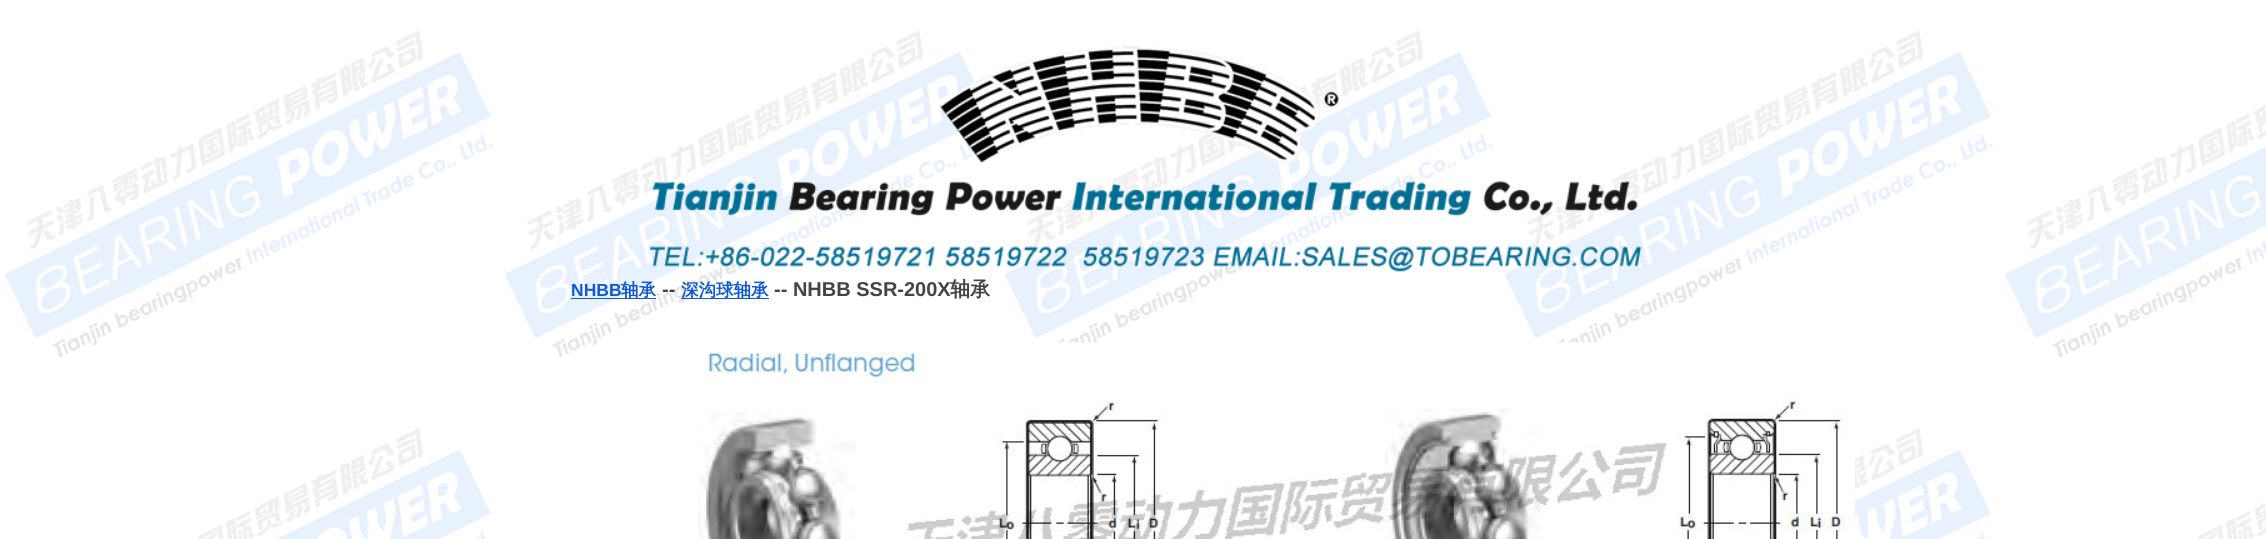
import math
import cairo



def draw_image(context, path, x, y, w, h):
    context.save()
    context.set_source_surface(cairo.ImageSurface.create_from_png(path), x, y)
    context.rectangle(x, y, w, h)
    context.fill()
    context.restore()


def draw(context):
    context.set_source_rgb(1, 1, 1)
    context.paint()
    draw_image(context, "images/1.png", 5, 31, 2261, 508)
    draw_image(context, "images/2.png", 649, 46, 993, 226)
    context.set_source_rgb(15 / 255, 88 / 255, 214 / 255)
    context.rectangle(571, 298, 85, 1)
    context.fill()
    context.rectangle(681, 298, 88, 1)
    context.fill()
    draw_image(context, "images/3.png", 698, 342, 1157, 197)
    context.select_font_face("Liberation Sans", cairo.FontSlant.NORMAL, cairo.FontWeight.BOLD)
    context.set_font_size(17.5)
    context.move_to(571, 296)
    context.show_text("NHBB")
    context.select_font_face("WenQuanYi Zen Hei", cairo.FontSlant.NORMAL, cairo.FontWeight.BOLD)
    context.move_to(621, 296)
    context.show_text("轴承")
    context.select_font_face("Liberation Sans", cairo.FontSlant.NORMAL, cairo.FontWeight.BOLD)
    context.set_font_size(20)
    context.set_source_rgb(68 / 255, 68 / 255, 68 / 255)
    context.move_to(662, 296)
    context.show_text("--")
    context.select_font_face("WenQuanYi Zen Hei", cairo.FontSlant.NORMAL, cairo.FontWeight.BOLD)
    context.set_font_size(17.5)
    context.set_source_rgb(15 / 255, 88 / 255, 214 / 255)
    context.move_to(681, 296)
    context.show_text("深沟球轴承")
    context.select_font_face("Liberation Sans", cairo.FontSlant.NORMAL, cairo.FontWeight.BOLD)
    context.set_font_size(20)
    context.set_source_rgb(68 / 255, 68 / 255, 68 / 255)
    context.move_to(774, 296)
    context.show_text("-- NHBB SSR-200X")
    context.select_font_face("WenQuanYi Zen Hei", cairo.FontSlant.NORMAL, cairo.FontWeight.BOLD)
    context.move_to(950, 296)
    context.show_text("轴承")


surface = cairo.ImageSurface(cairo.Format.RGB24, 2266, 539)
context = cairo.Context(surface)
options = cairo.FontOptions()
options.set_hint_metrics(cairo.HintMetrics.OFF)
options.set_hint_style(cairo.HintStyle.NONE)
context.set_font_options(options)
context.set_miter_limit(4)
draw(context)
surface.write_to_png("out.png")
